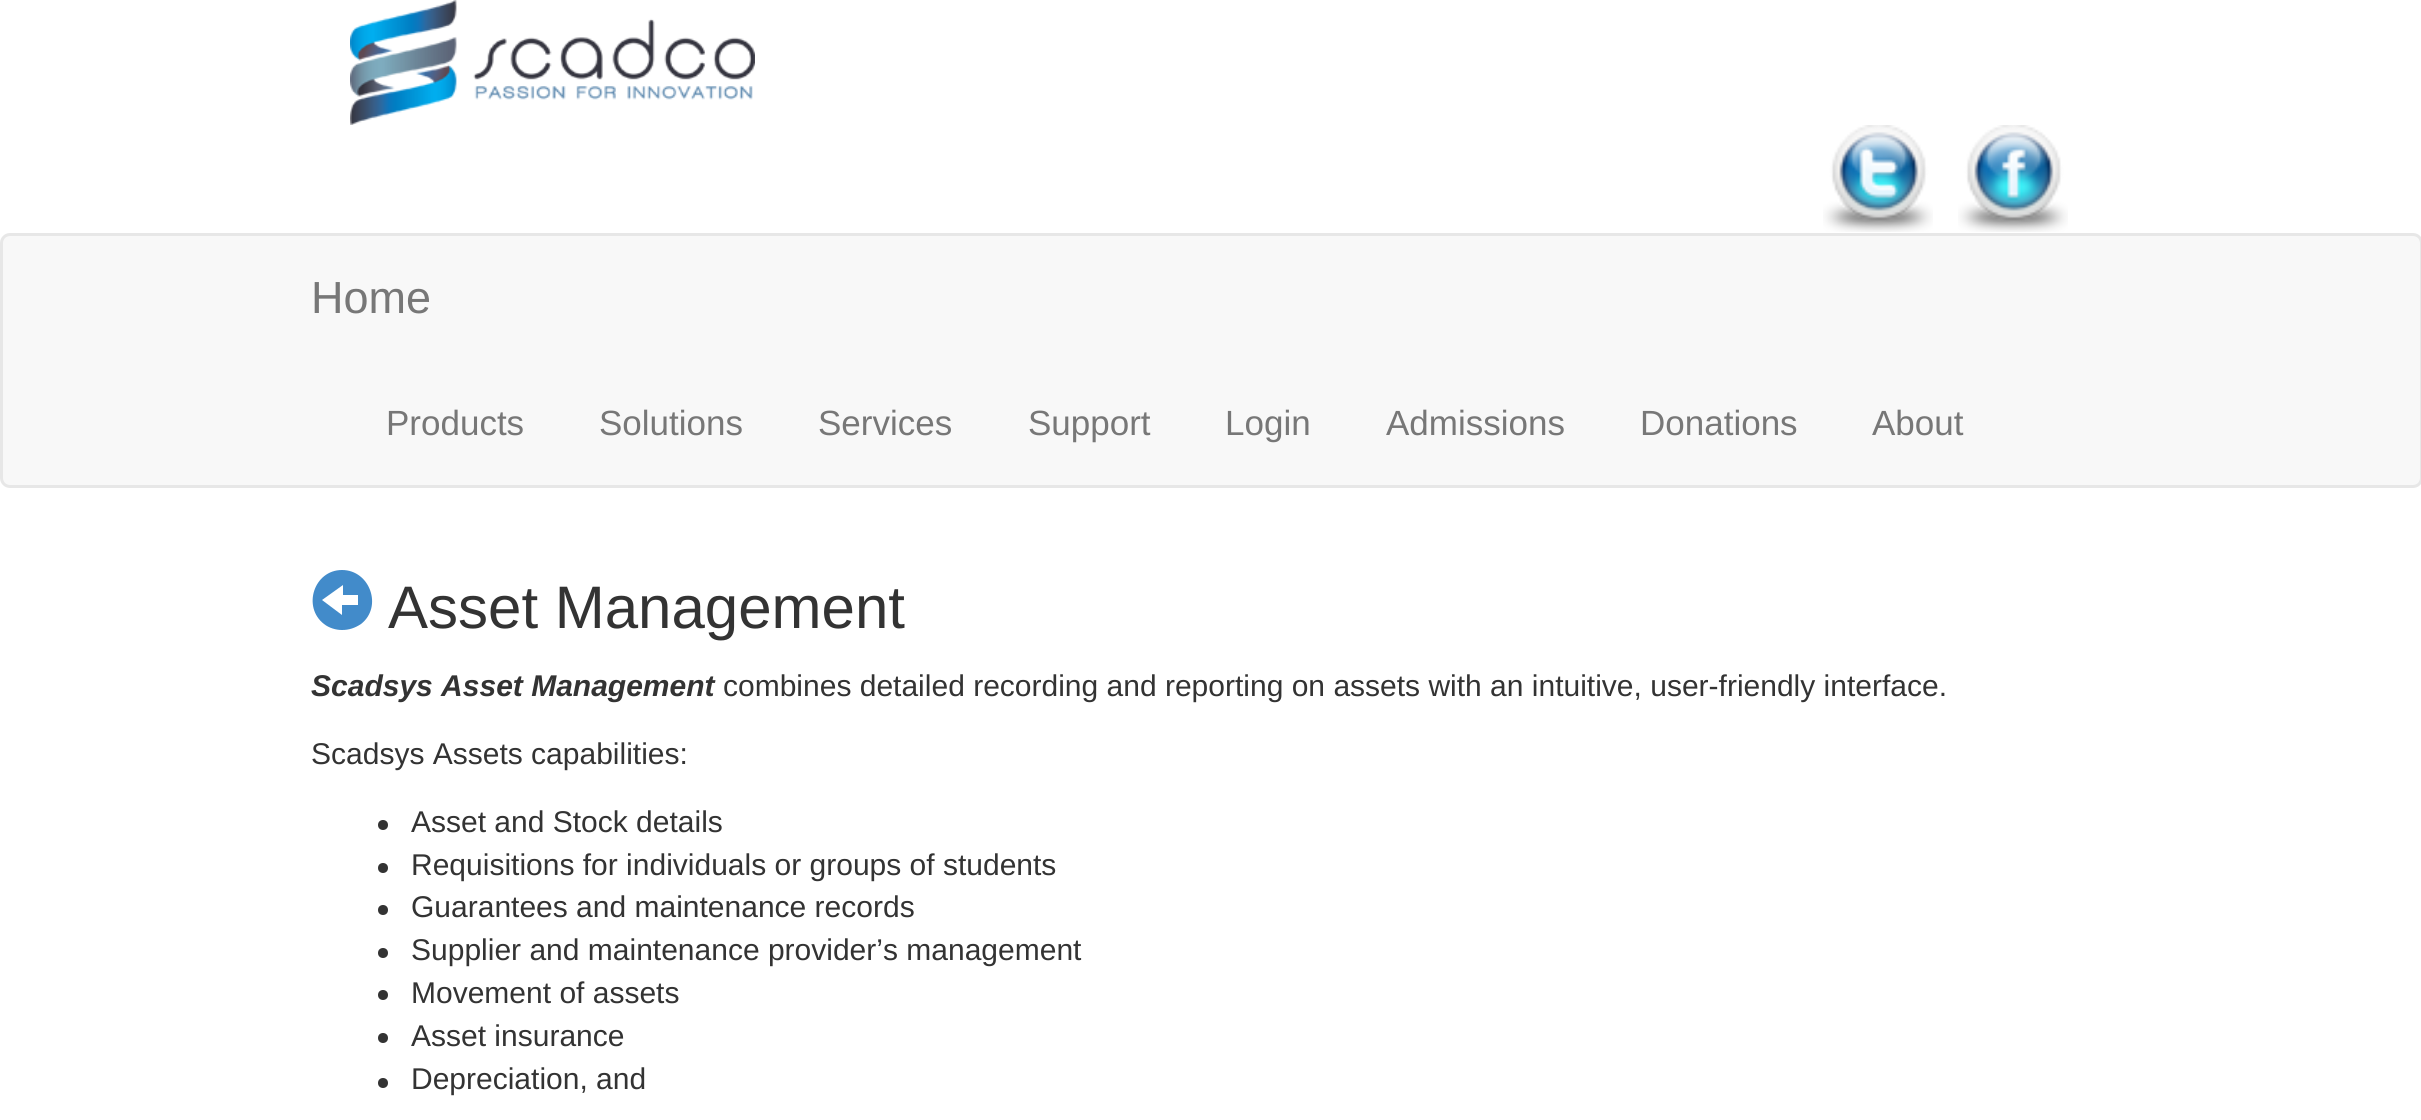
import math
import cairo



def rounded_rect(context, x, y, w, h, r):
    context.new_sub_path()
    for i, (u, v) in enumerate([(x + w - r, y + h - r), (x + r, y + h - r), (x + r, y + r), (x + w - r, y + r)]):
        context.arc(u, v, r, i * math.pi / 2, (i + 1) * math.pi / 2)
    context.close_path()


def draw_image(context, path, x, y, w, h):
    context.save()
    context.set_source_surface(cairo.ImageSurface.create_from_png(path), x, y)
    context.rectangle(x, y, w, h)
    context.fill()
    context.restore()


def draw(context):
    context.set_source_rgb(1, 1, 1)
    context.paint()
    draw_image(context, "images/1.png", 350, 0, 405, 125)
    draw_image(context, "images/2.png", 1823, 125, 110, 107)
    draw_image(context, "images/3.png", 1958, 125, 110, 107)
    context.set_source_rgb(248 / 255, 248 / 255, 248 / 255)
    rounded_rect(context, 1.5, 234.5, 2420, 252, 8.5)
    context.fill_preserve()
    context.set_source_rgb(231 / 255, 231 / 255, 231 / 255)
    context.set_line_width(3)
    context.stroke()
    context.set_source_rgb(66 / 255, 139 / 255, 202 / 255)
    context.new_path()
    context.move_to(342, 570)
    context.curve_to(370, 570, 383, 607, 361, 624)
    context.curve_to(355, 628, 349, 630, 342, 630)
    context.curve_to(336, 630, 329, 628, 324, 624)
    context.curve_to(302, 607, 314, 570, 342, 570)
    context.close_path()
    context.move_to(322, 600)
    context.line_to(342, 615)
    context.line_to(342, 605)
    context.line_to(358, 605)
    context.line_to(358, 595)
    context.line_to(343, 595)
    context.line_to(343, 585)
    context.close_path()
    context.fill()
    context.set_source_rgb(51 / 255, 51 / 255, 51 / 255)
    context.arc(383, 825, 5, 0, 2 * math.pi)
    context.fill()
    context.arc(383, 868, 5, 0, 2 * math.pi)
    context.fill()
    context.arc(383, 910, 5, 0, 2 * math.pi)
    context.fill()
    context.arc(383, 953, 5, 0, 2 * math.pi)
    context.fill()
    context.arc(383, 995, 5, 0, 2 * math.pi)
    context.fill()
    context.arc(383, 1038, 5, 0, 2 * math.pi)
    context.fill()
    context.arc(383, 1083, 5, 0, 2 * math.pi)
    context.fill()
    context.select_font_face("Liberation Sans")
    context.set_font_size(45)
    context.set_source_rgb(119 / 255, 119 / 255, 119 / 255)
    context.move_to(311, 313)
    context.show_text("Home")
    context.set_font_size(35)
    context.move_to(386, 435)
    context.show_text("Products")
    context.move_to(599, 435)
    context.show_text("Solutions")
    context.move_to(818, 435)
    context.show_text("Services")
    context.move_to(1028, 435)
    context.show_text("Support")
    context.move_to(1225, 435)
    context.show_text("Login")
    context.move_to(1386, 435)
    context.show_text("Admissions")
    context.move_to(1640, 435)
    context.show_text("Donations")
    context.move_to(1872, 435)
    context.show_text("About")
    context.set_font_size(60)
    context.set_source_rgb(51 / 255, 51 / 255, 51 / 255)
    context.move_to(388, 628)
    context.show_text("Asset Management")
    context.select_font_face("Liberation Sans", cairo.FontSlant.ITALIC, cairo.FontWeight.BOLD)
    context.set_font_size(30)
    context.move_to(311, 696)
    context.show_text("Scadsys Asset Management")
    context.select_font_face("Liberation Sans")
    context.move_to(723, 696)
    context.show_text("combines detailed recording and reporting on assets with an intuitive, user-friendly interface.")
    context.move_to(311, 764)
    context.show_text("Scadsys Assets capabilities:")
    context.move_to(411, 832)
    context.show_text("Asset and Stock details")
    context.move_to(411, 875)
    context.show_text("Requisitions for individuals or groups of students")
    context.move_to(411, 917)
    context.show_text("Guarantees and maintenance records")
    context.move_to(411, 960)
    context.show_text("Supplier and maintenance provider’s management")
    context.move_to(411, 1003)
    context.show_text("Movement of assets")
    context.move_to(411, 1046)
    context.show_text("Asset insurance")
    context.move_to(411, 1089)
    context.show_text("Depreciation, and")


surface = cairo.ImageSurface(cairo.Format.RGB24, 2421, 1120)
context = cairo.Context(surface)
options = cairo.FontOptions()
options.set_hint_metrics(cairo.HintMetrics.OFF)
options.set_hint_style(cairo.HintStyle.NONE)
context.set_font_options(options)
context.set_miter_limit(4)
draw(context)
surface.write_to_png("out.png")
